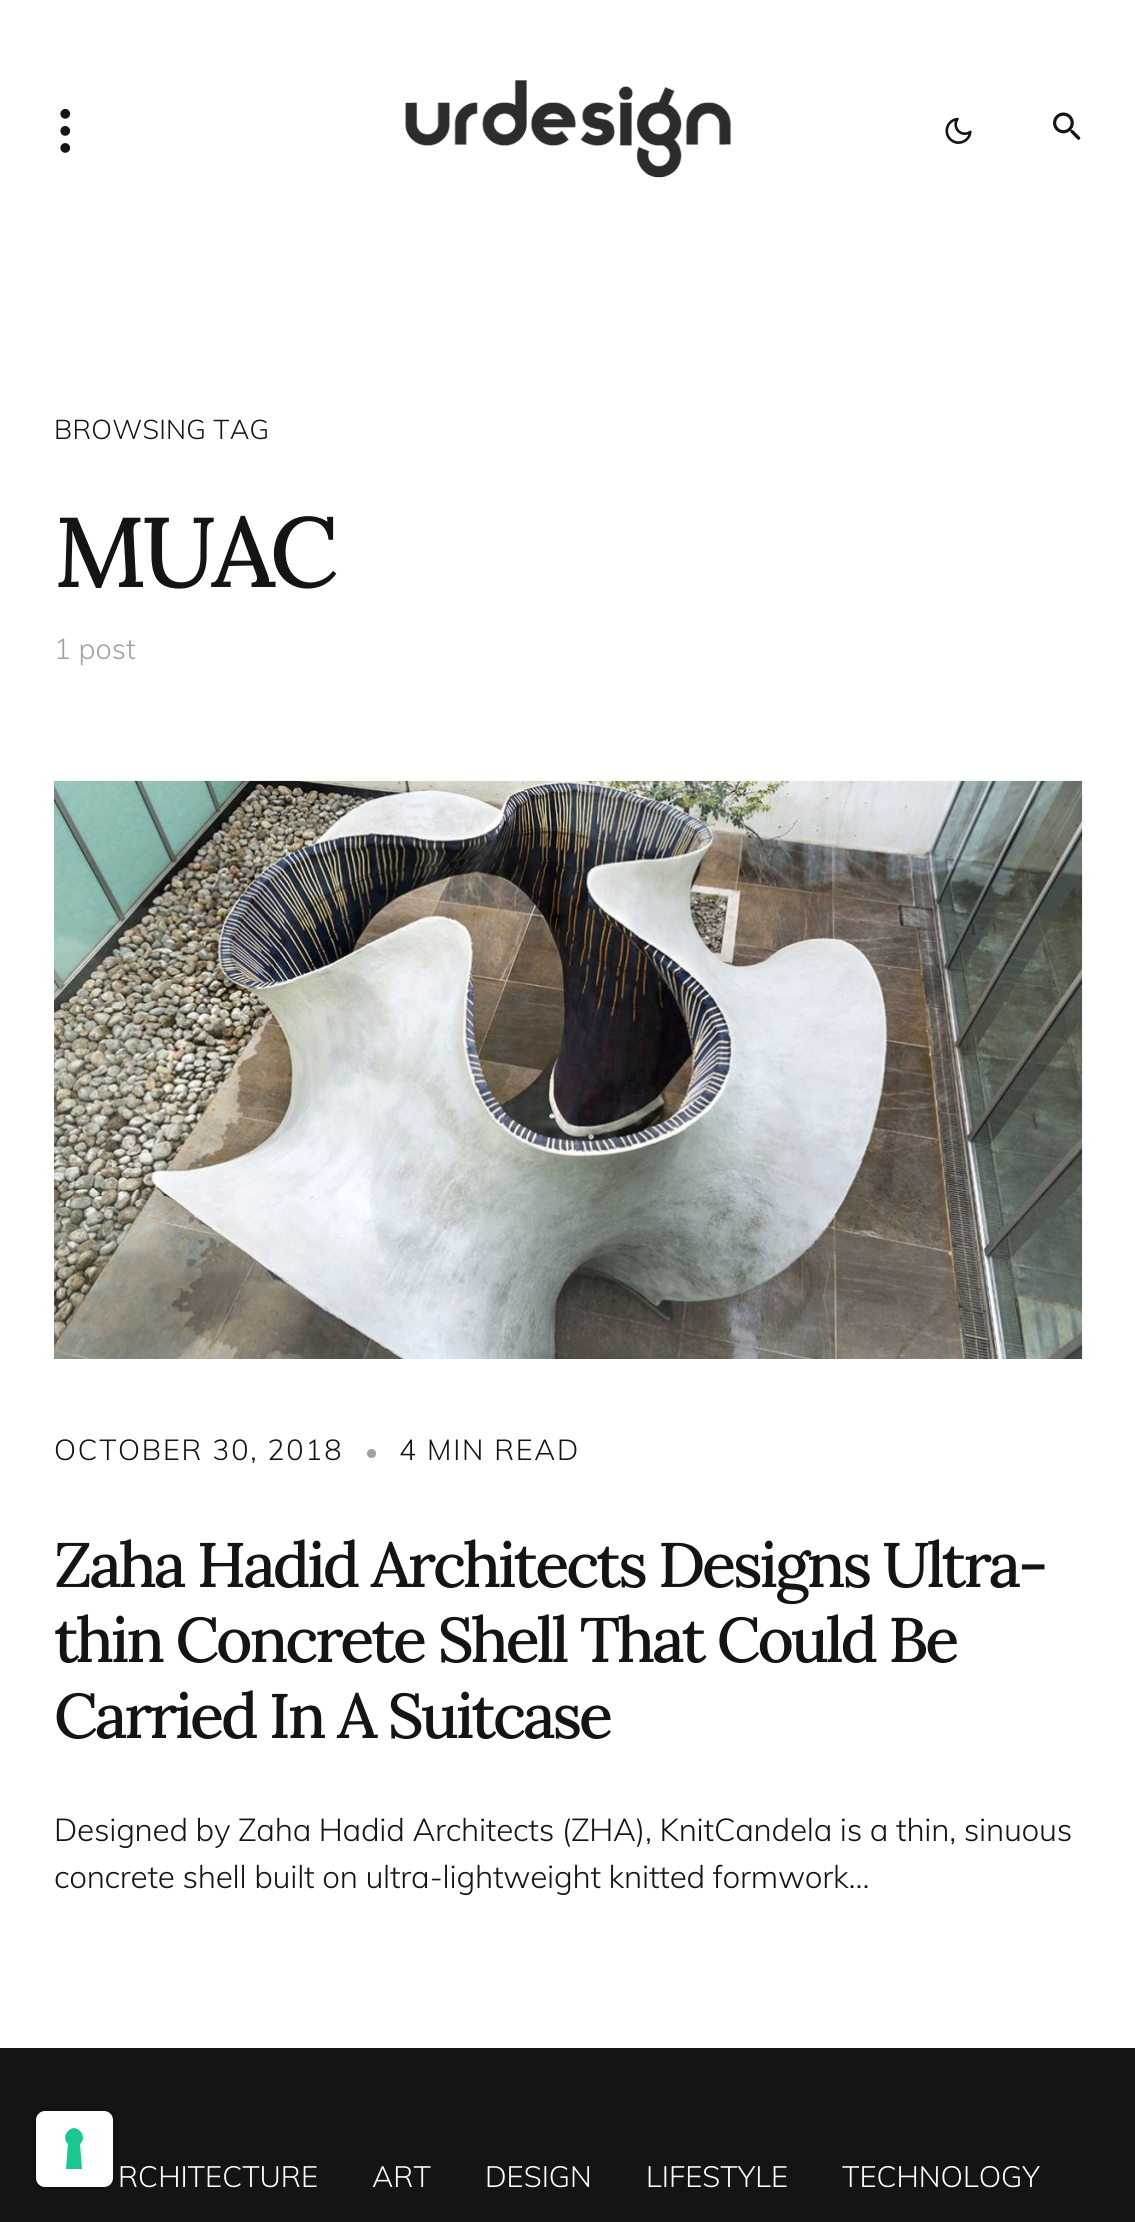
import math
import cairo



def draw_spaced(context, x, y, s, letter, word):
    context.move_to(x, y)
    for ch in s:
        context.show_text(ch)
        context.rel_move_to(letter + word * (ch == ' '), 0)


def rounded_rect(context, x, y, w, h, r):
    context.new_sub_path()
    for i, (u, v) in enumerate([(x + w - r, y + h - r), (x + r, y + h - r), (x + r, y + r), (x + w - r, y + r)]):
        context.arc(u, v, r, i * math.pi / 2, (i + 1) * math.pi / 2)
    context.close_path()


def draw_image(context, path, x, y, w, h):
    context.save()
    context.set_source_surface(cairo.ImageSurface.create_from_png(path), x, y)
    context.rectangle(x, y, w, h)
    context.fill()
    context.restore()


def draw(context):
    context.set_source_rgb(1, 1, 1)
    context.paint()
    draw_image(context, "images/1.png", 60, 108, 11, 45)
    draw_image(context, "images/2.png", 405, 80, 326, 98)
    draw_image(context, "images/3.png", 945, 117, 27, 27)
    draw_image(context, "images/4.png", 1053, 112, 28, 28)
    draw_image(context, "images/5.png", 54, 780, 1029, 579)
    context.set_source_rgb(161 / 255, 161 / 255, 161 / 255)
    context.arc(371.5, 1453.5, 4.5, 0, 2 * math.pi)
    context.fill()
    context.set_source_rgb(20 / 255, 20 / 255, 20 / 255)
    context.rectangle(0, 2048, 1135, 174)
    context.fill()
    rounded_rect(context, 35, 2109, 79, 79, 10)
    context.set_source_rgba(0, 0, 0, 0.15)
    context.stroke()
    context.set_source_rgb(1, 1, 1)
    rounded_rect(context, 36, 2111, 77, 76, 9)
    context.fill()
    context.set_source_rgb(28 / 255, 198 / 255, 145 / 255)
    context.set_fill_rule(cairo.FillRule.EVEN_ODD)
    context.new_path()
    context.move_to(74, 2128)
    context.curve_to(82, 2129, 86, 2139, 80, 2144)
    context.line_to(82, 2169)
    context.line_to(66, 2169)
    context.line_to(68, 2144)
    context.curve_to(62, 2139, 66, 2129, 74, 2128)
    context.close_path()
    context.fill()
    context.select_font_face("Muli Light")
    context.set_font_size(27)
    context.set_source_rgb(20 / 255, 20 / 255, 20 / 255)
    draw_spaced(context, 54, 439, "BROWSING TAG", 0.25, 0)
    context.select_font_face("Lora Medium")
    context.set_font_size(99)
    draw_spaced(context, 54, 587, "MUAC", -5, 0)
    context.select_font_face("Muli Light")
    context.set_font_size(28.75)
    context.set_source_rgb(161 / 255, 161 / 255, 161 / 255)
    context.move_to(54, 659)
    context.show_text("1 post")
    context.set_source_rgb(20 / 255, 20 / 255, 20 / 255)
    draw_spaced(context, 54, 1460, "OCTOBER 30, 2018", 1.75, 0)
    draw_spaced(context, 399, 1460, "4 MIN READ", 1.75, 0)
    context.select_font_face("Lora Medium")
    context.set_font_size(63)
    draw_spaced(context, 54, 1587, "Zaha Hadid Architects Designs Ultra-", -3.15, 0)
    draw_spaced(context, 54, 1662, "thin Concrete Shell That Could Be", -3.15, 0)
    draw_spaced(context, 54, 1738, "Carried In A Suitcase", -3.15, 0)
    context.select_font_face("Muli Light")
    context.set_font_size(31.5)
    draw_spaced(context, 54, 1841, "Designed by Zaha Hadid Architects (ZHA), KnitCandela is a thin, sinuous", -0.25, 0)
    draw_spaced(context, 54, 1888, "concrete shell built on ultra-lightweight knitted formwork…", -0.25, 0)
    context.set_font_size(29.25)
    context.set_source_rgb(1, 1, 1)
    context.move_to(118, 2187)
    context.show_text("RCHITECTURE")
    context.move_to(372, 2187)
    context.show_text("ART")
    context.move_to(485, 2187)
    context.show_text("DESIGN")
    context.move_to(646, 2187)
    context.show_text("LIFESTYLE")
    context.move_to(842, 2187)
    context.show_text("TECHNOLOGY")


surface = cairo.ImageSurface(cairo.Format.RGB24, 1135, 2222)
context = cairo.Context(surface)
options = cairo.FontOptions()
options.set_hint_metrics(cairo.HintMetrics.OFF)
options.set_hint_style(cairo.HintStyle.NONE)
context.set_font_options(options)
context.set_miter_limit(4)
draw(context)
surface.write_to_png("out.png")
